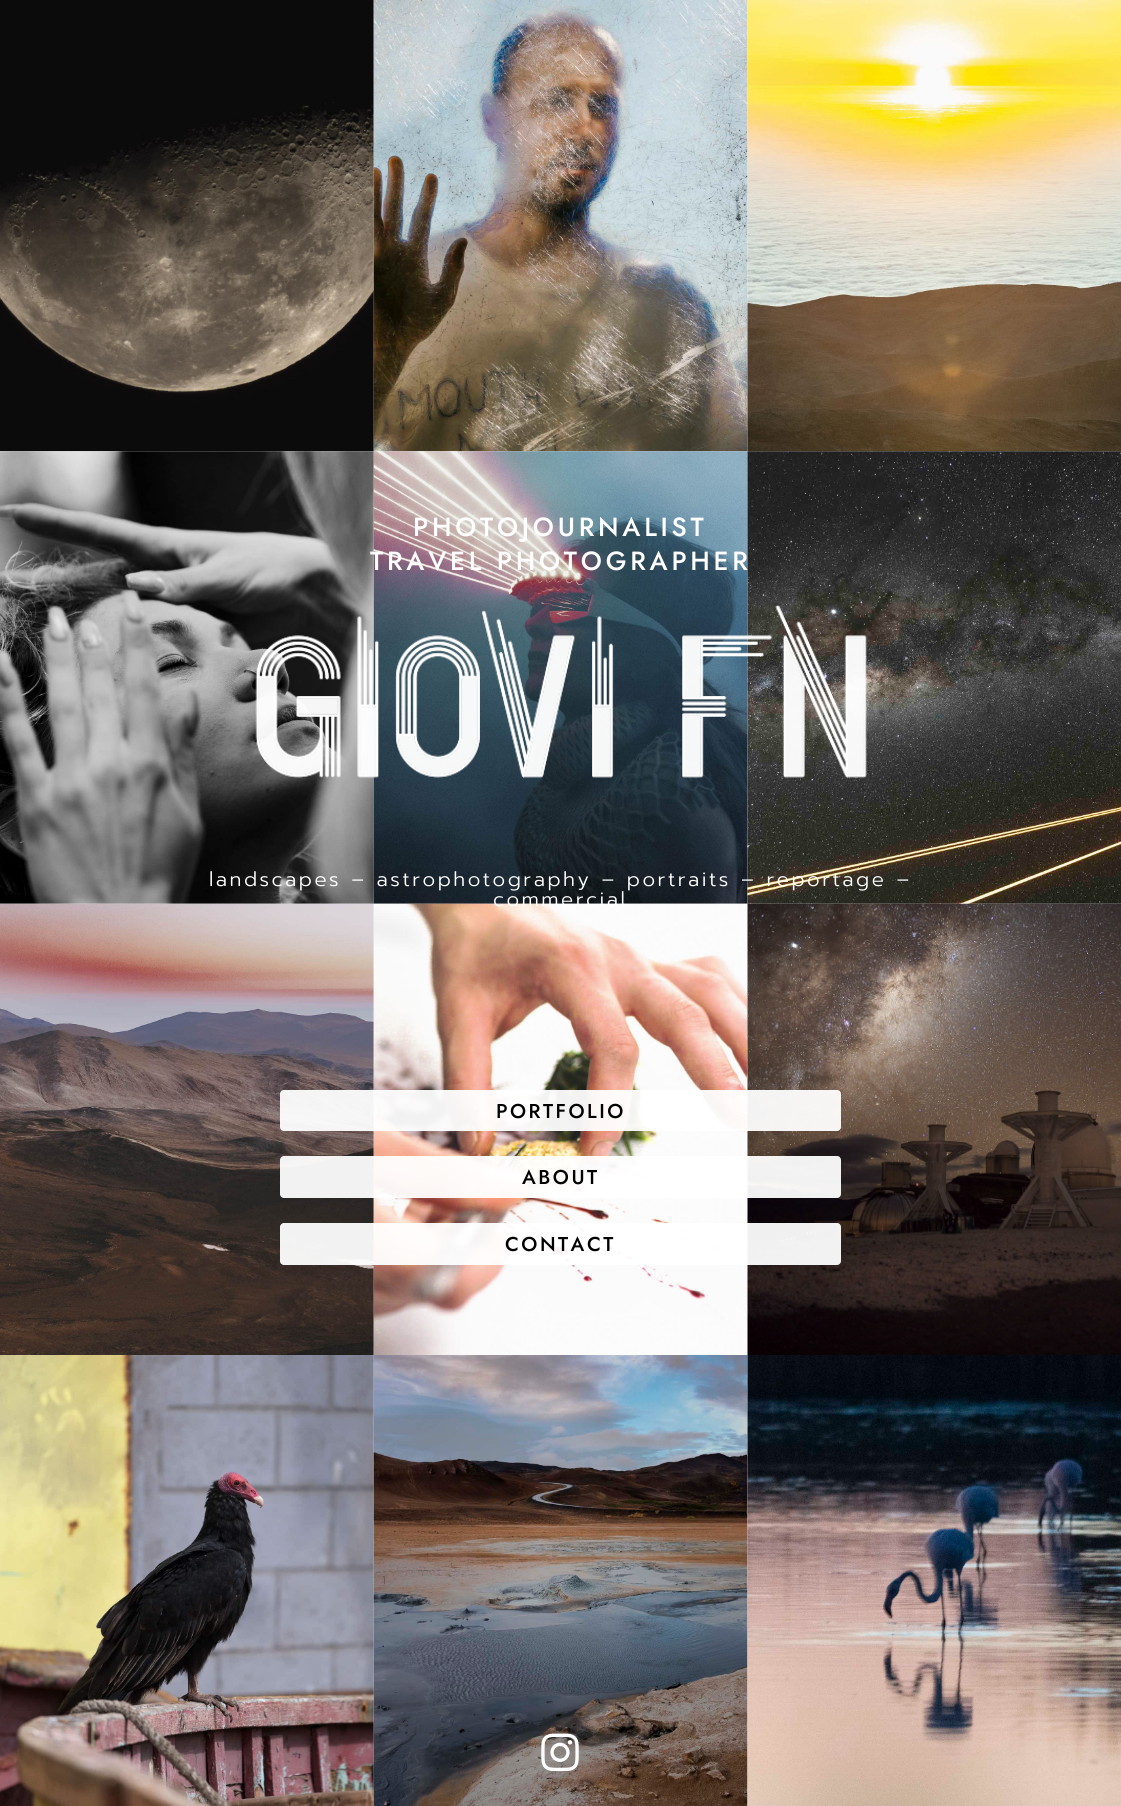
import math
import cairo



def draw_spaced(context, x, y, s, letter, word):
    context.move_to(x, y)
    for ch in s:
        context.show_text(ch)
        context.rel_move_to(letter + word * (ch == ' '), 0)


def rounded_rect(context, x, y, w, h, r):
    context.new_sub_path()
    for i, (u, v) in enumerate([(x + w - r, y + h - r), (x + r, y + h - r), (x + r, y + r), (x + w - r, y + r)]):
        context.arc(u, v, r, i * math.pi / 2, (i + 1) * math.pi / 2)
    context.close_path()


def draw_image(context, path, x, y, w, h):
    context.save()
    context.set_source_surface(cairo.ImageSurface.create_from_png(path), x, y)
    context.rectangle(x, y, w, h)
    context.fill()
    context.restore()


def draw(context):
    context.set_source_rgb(1, 1, 1)
    context.paint()
    draw_image(context, "images/1.png", 0, 0, 374, 452)
    draw_image(context, "images/2.png", 373, 0, 375, 452)
    draw_image(context, "images/3.png", 747, 0, 374, 452)
    draw_image(context, "images/4.png", 0, 451, 374, 453)
    draw_image(context, "images/5.png", 373, 451, 375, 453)
    draw_image(context, "images/6.png", 747, 451, 374, 453)
    draw_image(context, "images/7.png", 255, 605, 612, 174)
    draw_image(context, "images/8.png", 0, 903, 374, 452)
    draw_image(context, "images/9.png", 373, 903, 375, 452)
    draw_image(context, "images/10.png", 747, 903, 374, 452)
    draw_image(context, "images/11.png", 0, 1355, 374, 451)
    draw_image(context, "images/12.png", 373, 1355, 375, 451)
    draw_image(context, "images/13.png", 747, 1355, 374, 451)
    context.set_source_rgba(1, 1, 1, 0.94)
    rounded_rect(context, 280, 1090, 561, 41, 4)
    context.fill()
    rounded_rect(context, 280, 1156, 561, 42, 4)
    context.fill()
    rounded_rect(context, 280, 1223, 561, 42, 4)
    context.fill()
    draw_image(context, "images/14.png", 541, 1733, 38, 39)
    context.select_font_face("Jost Medium")
    context.set_font_size(26.25)
    context.set_source_rgb(1, 1, 1)
    draw_spaced(context, 413, 536, "PHOTOJOURNALIST", 3.75, 0)
    draw_spaced(context, 370, 570, "TRAVEL PHOTOGRAPHER", 3.75, 0)
    context.select_font_face("Prompt Light")
    context.set_font_size(20)
    draw_spaced(context, 209, 886, "landscapes – astrophotography – portraits – reportage –", 2.5, 0)
    draw_spaced(context, 493, 906, "commercial", 2.5, 0)
    context.select_font_face("Jost Medium")
    context.set_source_rgb(0, 0, 0)
    draw_spaced(context, 496, 1118, "PORTFOLIO", 2.5, 0)
    draw_spaced(context, 522, 1184, "ABOUT", 2.5, 0)
    draw_spaced(context, 505, 1251, "CONTACT", 2.5, 0)


surface = cairo.ImageSurface(cairo.Format.RGB24, 1121, 1806)
context = cairo.Context(surface)
options = cairo.FontOptions()
options.set_hint_metrics(cairo.HintMetrics.OFF)
options.set_hint_style(cairo.HintStyle.NONE)
context.set_font_options(options)
context.set_miter_limit(4)
draw(context)
surface.write_to_png("out.png")
